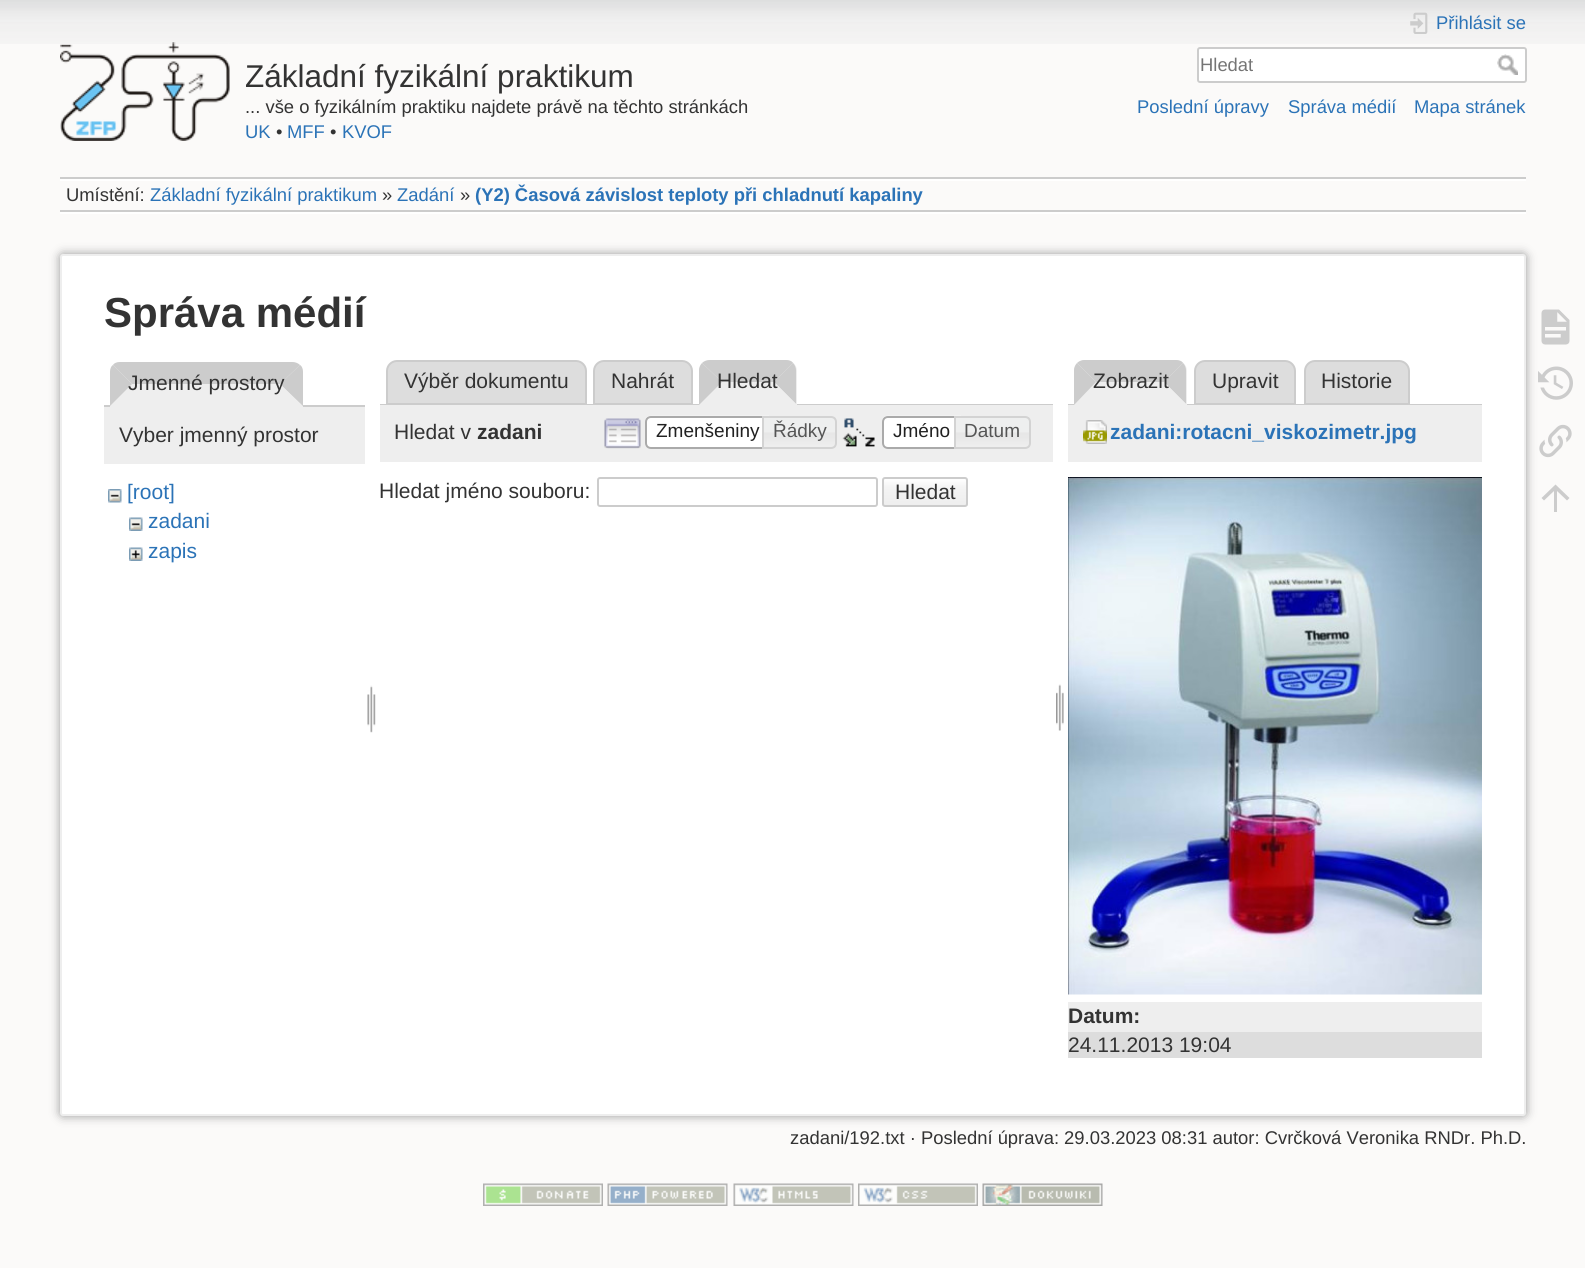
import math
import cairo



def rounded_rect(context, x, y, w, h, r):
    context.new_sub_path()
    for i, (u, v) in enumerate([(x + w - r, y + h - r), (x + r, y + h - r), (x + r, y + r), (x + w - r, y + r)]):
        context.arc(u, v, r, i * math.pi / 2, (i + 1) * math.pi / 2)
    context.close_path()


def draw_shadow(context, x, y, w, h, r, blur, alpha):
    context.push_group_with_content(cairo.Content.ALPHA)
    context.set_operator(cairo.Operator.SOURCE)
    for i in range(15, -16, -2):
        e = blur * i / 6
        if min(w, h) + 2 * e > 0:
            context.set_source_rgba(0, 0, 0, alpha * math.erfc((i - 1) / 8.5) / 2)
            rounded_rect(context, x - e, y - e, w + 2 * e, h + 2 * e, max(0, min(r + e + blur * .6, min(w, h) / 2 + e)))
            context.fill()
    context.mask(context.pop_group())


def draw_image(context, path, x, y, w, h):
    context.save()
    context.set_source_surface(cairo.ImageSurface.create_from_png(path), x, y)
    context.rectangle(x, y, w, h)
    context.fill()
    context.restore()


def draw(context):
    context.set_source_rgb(251 / 255, 250 / 255, 249 / 255)
    context.paint()
    draw_image(context, "images/1.png", 0, 0, 1585, 44)
    draw_image(context, "images/2.png", 60, 42, 170, 99)
    draw_image(context, "images/3.png", 1410, 12, 18, 22)
    context.set_source_rgb(1, 1, 1)
    rounded_rect(context, 1198, 48, 328, 34, 2)
    context.fill_preserve()
    context.set_source_rgb(204 / 255, 204 / 255, 204 / 255)
    context.stroke()
    draw_image(context, "images/4.png", 1497, 54, 21, 21)
    context.rectangle(60, 177, 1466, 2)
    context.fill()
    context.set_source_rgb(1, 1, 1)
    context.rectangle(60, 212, 1466, 2)
    context.fill()
    context.rectangle(60, 179, 1466, 2)
    context.fill()
    context.set_source_rgb(204 / 255, 204 / 255, 204 / 255)
    context.rectangle(60, 210, 1466, 2)
    context.fill()
    context.set_source_rgb(153 / 255, 153 / 255, 153 / 255)
    draw_shadow(context, 60, 254, 1466, 862, 3, 5, 1)
    context.set_source_rgb(1, 1, 1)
    rounded_rect(context, 61, 255, 1464, 860, 2)
    context.fill_preserve()
    context.set_source_rgb(238 / 255, 238 / 255, 238 / 255)
    context.stroke()
    context.set_source_rgb(204 / 255, 204 / 255, 204 / 255)
    context.rectangle(104, 405, 261, 2)
    context.fill()
    context.set_source_rgb(238 / 255, 238 / 255, 238 / 255)
    context.new_path()
    context.move_to(121, 362)
    context.line_to(292, 362)
    context.curve_to(298, 362, 303, 367, 303, 373)
    context.line_to(303, 407)
    context.line_to(110, 407)
    context.line_to(110, 373)
    context.curve_to(110, 367, 115, 362, 121, 362)
    context.close_path()
    context.fill()
    context.set_source_rgb(204 / 255, 204 / 255, 204 / 255)
    context.new_path()
    context.move_to(120, 362)
    context.curve_to(117, 362, 114, 363, 113, 365)
    context.line_to(132, 384)
    context.line_to(280, 384)
    context.line_to(300, 365)
    context.curve_to(298, 363, 295, 362, 292, 362)
    context.close_path()
    context.fill()
    context.new_path()
    context.move_to(303, 406)
    context.line_to(280, 384)
    context.line_to(300, 365)
    context.curve_to(302, 366, 303, 369, 303, 372)
    context.close_path()
    context.fill()
    context.set_source_rgb(238 / 255, 238 / 255, 238 / 255)
    context.new_path()
    context.move_to(302, 406)
    context.line_to(280, 384)
    context.line_to(132, 384)
    context.line_to(110, 406)
    context.close_path()
    context.fill()
    context.set_source_rgb(204 / 255, 204 / 255, 204 / 255)
    context.new_path()
    context.move_to(113, 365)
    context.curve_to(111, 366, 110, 369, 110, 372)
    context.line_to(110, 406)
    context.line_to(132, 384)
    context.close_path()
    context.fill()
    context.set_source_rgb(238 / 255, 238 / 255, 238 / 255)
    context.rectangle(104, 407, 261, 57)
    context.fill()
    draw_image(context, "images/5.png", 108, 489, 14, 14)
    draw_image(context, "images/6.png", 129, 517, 14, 14)
    draw_image(context, "images/7.png", 129, 547, 14, 14)
    draw_image(context, "images/8.png", 367, 685, 9, 48)
    context.set_source_rgb(221 / 255, 221 / 255, 221 / 255)
    context.new_path()
    context.move_to(397, 361)
    context.line_to(576, 361)
    context.curve_to(581.5, 361, 586, 365.5, 586, 371)
    context.line_to(586, 404)
    context.line_to(387, 404)
    context.line_to(387, 371)
    context.curve_to(387, 365.5, 391.5, 361, 397, 361)
    context.close_path()
    context.fill_preserve()
    context.set_source_rgb(204 / 255, 204 / 255, 204 / 255)
    context.stroke()
    context.set_source_rgb(221 / 255, 221 / 255, 221 / 255)
    context.new_path()
    context.move_to(604, 361)
    context.line_to(682, 361)
    context.curve_to(687.5, 361, 692, 365.5, 692, 371)
    context.line_to(692, 404)
    context.line_to(594, 404)
    context.line_to(594, 371)
    context.curve_to(594, 365.5, 598.5, 361, 604, 361)
    context.close_path()
    context.fill_preserve()
    context.set_source_rgb(204 / 255, 204 / 255, 204 / 255)
    context.stroke()
    context.rectangle(380, 404, 673, 1)
    context.fill()
    context.set_source_rgb(238 / 255, 238 / 255, 238 / 255)
    context.new_path()
    context.move_to(710, 360)
    context.line_to(786, 360)
    context.curve_to(792, 360, 797, 365, 797, 371)
    context.line_to(797, 405)
    context.line_to(699, 405)
    context.line_to(699, 371)
    context.curve_to(699, 365, 704, 360, 710, 360)
    context.close_path()
    context.fill()
    context.set_source_rgb(204 / 255, 204 / 255, 204 / 255)
    context.new_path()
    context.move_to(710, 360)
    context.line_to(786, 360)
    context.curve_to(789, 360, 792, 361, 793, 363)
    context.line_to(774, 382)
    context.line_to(722, 382)
    context.line_to(702, 363)
    context.curve_to(704, 361, 707, 360, 710, 360)
    context.close_path()
    context.fill()
    context.new_path()
    context.move_to(793, 363)
    context.line_to(774, 382)
    context.line_to(796, 404)
    context.line_to(796, 370)
    context.curve_to(796, 368, 795, 365, 793, 363)
    context.close_path()
    context.fill()
    context.set_source_rgb(238 / 255, 238 / 255, 238 / 255)
    context.new_path()
    context.move_to(796, 404)
    context.line_to(774, 382)
    context.line_to(722, 382)
    context.line_to(699, 405)
    context.line_to(796, 405)
    context.close_path()
    context.fill()
    context.set_source_rgb(204 / 255, 204 / 255, 204 / 255)
    context.new_path()
    context.move_to(699, 405)
    context.line_to(699, 370)
    context.curve_to(699, 368, 700, 365, 702, 363)
    context.line_to(722, 382)
    context.close_path()
    context.fill()
    context.set_source_rgb(238 / 255, 238 / 255, 238 / 255)
    context.rectangle(380, 405, 673, 57)
    context.fill()
    draw_image(context, "images/9.png", 604, 418, 37, 31)
    context.set_source_rgb(1, 1, 1)
    context.new_path()
    context.move_to(651, 416)
    context.line_to(770, 416)
    context.line_to(770, 449)
    context.line_to(651, 449)
    context.curve_to(647.5, 449, 645, 446.5, 645, 443)
    context.line_to(645, 422)
    context.curve_to(645, 418.5, 647.5, 416, 651, 416)
    context.close_path()
    context.fill()
    draw_image(context, "images/10.png", 645, 415, 124, 5)
    context.new_path()
    context.move_to(651, 417)
    context.line_to(769, 417)
    context.line_to(769, 448)
    context.line_to(651, 448)
    context.curve_to(648, 448, 646, 446, 646, 443)
    context.line_to(646, 422)
    context.curve_to(646, 419, 648, 417, 651, 417)
    context.close_path()
    context.set_source_rgb(170 / 255, 170 / 255, 170 / 255)
    context.stroke()
    draw_image(context, "images/11.png", 764, 416, 73, 32)
    context.new_path()
    context.move_to(763, 417)
    context.line_to(831, 417)
    context.curve_to(834, 417, 836, 419, 836, 422)
    context.line_to(836, 443)
    context.curve_to(836, 446, 834, 448, 831, 448)
    context.line_to(763, 448)
    context.close_path()
    context.set_source_rgb(211 / 255, 211 / 255, 211 / 255)
    context.stroke()
    draw_image(context, "images/12.png", 842, 418, 33, 29)
    context.set_source_rgb(1, 1, 1)
    context.new_path()
    context.move_to(888, 416)
    context.line_to(962, 416)
    context.line_to(962, 449)
    context.line_to(888, 449)
    context.curve_to(884.5, 449, 882, 446.5, 882, 443)
    context.line_to(882, 422)
    context.curve_to(882, 418.5, 884.5, 416, 888, 416)
    context.close_path()
    context.fill()
    draw_image(context, "images/13.png", 882, 415, 79, 5)
    context.new_path()
    context.move_to(888, 417)
    context.line_to(961, 417)
    context.line_to(961, 448)
    context.line_to(888, 448)
    context.curve_to(885, 448, 883, 446, 883, 443)
    context.line_to(883, 422)
    context.curve_to(883, 419, 885, 417, 888, 417)
    context.close_path()
    context.set_source_rgb(170 / 255, 170 / 255, 170 / 255)
    context.stroke()
    draw_image(context, "images/14.png", 956, 416, 74, 32)
    context.new_path()
    context.move_to(955, 417)
    context.line_to(1025, 417)
    context.curve_to(1028, 417, 1030, 419, 1030, 422)
    context.line_to(1030, 443)
    context.curve_to(1030, 446, 1028, 448, 1025, 448)
    context.line_to(955, 448)
    context.close_path()
    context.set_source_rgb(211 / 255, 211 / 255, 211 / 255)
    context.stroke()
    rounded_rect(context, 598, 478, 279, 28, 2)
    context.set_source_rgb(204 / 255, 204 / 255, 204 / 255)
    context.stroke()
    context.save()
    rounded_rect(context, 882, 477, 86, 30, 3)
    context.clip()
    gradient = cairo.LinearGradient(925, 479, 925, 506)
    gradient.add_color_stop_rgba(0, 1, 1, 1, 1)
    gradient.add_color_stop_rgba(0.3, 244 / 255, 244 / 255, 244 / 255, 1)
    gradient.add_color_stop_rgba(0.99, 238 / 255, 238 / 255, 238 / 255, 1)
    gradient.add_color_stop_rgba(0.99, 204 / 255, 204 / 255, 204 / 255, 1)
    context.set_source(gradient)
    context.rectangle(882, 479, 86, 27)
    context.fill()
    context.restore()
    rounded_rect(context, 883, 478, 84, 28, 2)
    context.stroke()
    draw_image(context, "images/15.png", 1056, 684, 8, 47)
    context.set_source_rgb(221 / 255, 221 / 255, 221 / 255)
    context.new_path()
    context.move_to(1205, 361)
    context.line_to(1285, 361)
    context.curve_to(1290.5, 361, 1295, 365.5, 1295, 371)
    context.line_to(1295, 404)
    context.line_to(1195, 404)
    context.line_to(1195, 371)
    context.curve_to(1195, 365.5, 1199.5, 361, 1205, 361)
    context.close_path()
    context.fill_preserve()
    context.set_source_rgb(204 / 255, 204 / 255, 204 / 255)
    context.stroke()
    context.set_source_rgb(221 / 255, 221 / 255, 221 / 255)
    context.new_path()
    context.move_to(1315, 361)
    context.line_to(1399, 361)
    context.curve_to(1404.5, 361, 1409, 365.5, 1409, 371)
    context.line_to(1409, 404)
    context.line_to(1305, 404)
    context.line_to(1305, 371)
    context.curve_to(1305, 365.5, 1309.5, 361, 1315, 361)
    context.close_path()
    context.fill_preserve()
    context.set_source_rgb(204 / 255, 204 / 255, 204 / 255)
    context.stroke()
    context.rectangle(1068, 404, 414, 1)
    context.fill()
    context.set_source_rgb(238 / 255, 238 / 255, 238 / 255)
    context.new_path()
    context.move_to(1085, 360)
    context.line_to(1176, 360)
    context.curve_to(1182, 360, 1187, 365, 1187, 371)
    context.line_to(1187, 405)
    context.line_to(1074, 405)
    context.line_to(1074, 371)
    context.curve_to(1074, 365, 1079, 360, 1085, 360)
    context.close_path()
    context.fill()
    context.set_source_rgb(204 / 255, 204 / 255, 204 / 255)
    context.new_path()
    context.move_to(1084, 360)
    context.line_to(1176, 360)
    context.curve_to(1179, 360, 1182, 361, 1183, 363)
    context.line_to(1164, 382)
    context.line_to(1096, 382)
    context.line_to(1077, 363)
    context.curve_to(1079, 361, 1082, 360, 1084, 360)
    context.close_path()
    context.fill()
    context.new_path()
    context.move_to(1183, 363)
    context.line_to(1164, 382)
    context.line_to(1186, 404)
    context.line_to(1186, 370)
    context.curve_to(1186, 368, 1185, 365, 1183, 363)
    context.close_path()
    context.fill()
    context.set_source_rgb(238 / 255, 238 / 255, 238 / 255)
    context.new_path()
    context.move_to(1186, 404)
    context.line_to(1164, 382)
    context.line_to(1096, 382)
    context.line_to(1074, 405)
    context.line_to(1186, 405)
    context.close_path()
    context.fill()
    context.set_source_rgb(204 / 255, 204 / 255, 204 / 255)
    context.new_path()
    context.move_to(1074, 405)
    context.line_to(1074, 370)
    context.curve_to(1074, 368, 1075, 365, 1077, 363)
    context.line_to(1096, 382)
    context.close_path()
    context.fill()
    context.set_source_rgb(238 / 255, 238 / 255, 238 / 255)
    context.rectangle(1068, 405, 414, 57)
    context.fill()
    draw_image(context, "images/16.png", 1083, 420, 24, 24)
    draw_image(context, "images/17.png", 1068, 477, 414, 518)
    context.rectangle(1068, 1002, 414, 30)
    context.fill()
    context.set_source_rgb(221 / 255, 221 / 255, 221 / 255)
    context.rectangle(1068, 1032, 414, 26)
    context.fill()
    draw_image(context, "images/18.png", 1541, 309, 29, 36)
    draw_image(context, "images/19.png", 1538, 366, 35, 34)
    draw_image(context, "images/20.png", 1539, 424, 33, 34)
    context.set_source_rgb(204 / 255, 204 / 255, 204 / 255)
    context.new_path()
    context.move_to(1557, 512)
    context.line_to(1554, 512)
    context.line_to(1554, 491)
    context.line_to(1544, 500.5)
    context.line_to(1541.5, 498)
    context.line_to(1555.5, 484.5)
    context.line_to(1569.5, 498)
    context.line_to(1567, 500.5)
    context.line_to(1557, 491)
    context.close_path()
    context.fill()
    draw_image(context, "images/21.png", 483, 1183, 120, 23)
    draw_image(context, "images/22.png", 607, 1183, 121, 23)
    draw_image(context, "images/23.png", 733, 1183, 121, 23)
    draw_image(context, "images/24.png", 858, 1183, 120, 23)
    draw_image(context, "images/25.png", 982, 1183, 121, 23)
    context.select_font_face("Liberation Sans")
    context.set_font_size(31.5)
    context.set_source_rgb(51 / 255, 51 / 255, 51 / 255)
    context.move_to(245, 87)
    context.show_text("Základní fyzikální praktikum")
    context.set_font_size(18.4)
    context.move_to(245, 113)
    context.show_text("... vše o fyzikálním praktiku najdete právě na těchto stránkách")
    context.set_source_rgb(43 / 255, 115 / 255, 183 / 255)
    context.move_to(245, 138)
    context.show_text("UK")
    context.set_source_rgb(51 / 255, 51 / 255, 51 / 255)
    context.move_to(276, 138)
    context.show_text("•")
    context.set_source_rgb(43 / 255, 115 / 255, 183 / 255)
    context.move_to(287, 138)
    context.show_text("MFF")
    context.set_source_rgb(51 / 255, 51 / 255, 51 / 255)
    context.move_to(330, 138)
    context.show_text("•")
    context.set_source_rgb(43 / 255, 115 / 255, 183 / 255)
    context.move_to(342, 138)
    context.show_text("KVOF")
    context.move_to(1436, 29)
    context.show_text("Přihlásit se")
    context.set_source_rgb(117 / 255, 117 / 255, 117 / 255)
    context.move_to(1200, 71)
    context.show_text("Hledat")
    context.set_source_rgb(43 / 255, 115 / 255, 183 / 255)
    context.move_to(1137, 113)
    context.show_text("Poslední úpravy")
    context.move_to(1288, 113)
    context.show_text("Správa médií")
    context.move_to(1414, 113)
    context.show_text("Mapa stránek")
    context.set_source_rgb(51 / 255, 51 / 255, 51 / 255)
    context.move_to(66, 201)
    context.show_text("Umístění:")
    context.set_source_rgb(43 / 255, 115 / 255, 183 / 255)
    context.move_to(150, 201)
    context.show_text("Základní fyzikální praktikum")
    context.set_source_rgb(51 / 255, 51 / 255, 51 / 255)
    context.move_to(382, 201)
    context.show_text("»")
    context.set_source_rgb(43 / 255, 115 / 255, 183 / 255)
    context.move_to(397, 201)
    context.show_text("Zadání")
    context.set_source_rgb(51 / 255, 51 / 255, 51 / 255)
    context.move_to(460, 201)
    context.show_text("»")
    context.select_font_face("Liberation Sans", cairo.FontSlant.NORMAL, cairo.FontWeight.BOLD)
    context.set_source_rgb(43 / 255, 115 / 255, 183 / 255)
    context.move_to(475, 201)
    context.show_text("(Y2) Časová závislost teploty při chladnutí kapaliny")
    context.set_font_size(42)
    context.set_source_rgb(51 / 255, 51 / 255, 51 / 255)
    context.move_to(104, 327)
    context.show_text("Správa médií")
    context.select_font_face("Liberation Sans")
    context.set_font_size(21)
    context.move_to(128, 390)
    context.show_text("Jmenné prostory")
    context.move_to(119, 442)
    context.show_text("Vyber jmenný prostor")
    context.set_source_rgb(43 / 255, 115 / 255, 183 / 255)
    context.move_to(127, 499)
    context.show_text("[root]")
    context.move_to(148, 528)
    context.show_text("zadani")
    context.move_to(148, 558)
    context.show_text("zapis")
    context.set_source_rgb(51 / 255, 51 / 255, 51 / 255)
    context.move_to(404, 388)
    context.show_text("Výběr dokumentu")
    context.move_to(611, 388)
    context.show_text("Nahrát")
    context.move_to(717, 388)
    context.show_text("Hledat")
    context.move_to(394, 439)
    context.show_text("Hledat v")
    context.select_font_face("Liberation Sans", cairo.FontSlant.NORMAL, cairo.FontWeight.BOLD)
    context.move_to(477, 439)
    context.show_text("zadani")
    context.select_font_face("Liberation Sans")
    context.set_font_size(19)
    context.set_source_rgb(33 / 255, 33 / 255, 33 / 255)
    context.move_to(656, 437)
    context.show_text("Zmenšeniny")
    context.set_source_rgb(85 / 255, 85 / 255, 85 / 255)
    context.move_to(773, 437)
    context.show_text("Řádky")
    context.set_source_rgb(33 / 255, 33 / 255, 33 / 255)
    context.move_to(893, 437)
    context.show_text("Jméno")
    context.set_source_rgb(85 / 255, 85 / 255, 85 / 255)
    context.move_to(964, 437)
    context.show_text("Datum")
    context.set_font_size(21)
    context.set_source_rgb(51 / 255, 51 / 255, 51 / 255)
    context.move_to(379, 498)
    context.show_text("Hledat jméno souboru:")
    context.move_to(895, 499)
    context.show_text("Hledat")
    context.move_to(1093, 388)
    context.show_text("Zobrazit")
    context.move_to(1212, 388)
    context.show_text("Upravit")
    context.move_to(1321, 388)
    context.show_text("Historie")
    context.select_font_face("Liberation Sans", cairo.FontSlant.NORMAL, cairo.FontWeight.BOLD)
    context.set_source_rgb(43 / 255, 115 / 255, 183 / 255)
    context.move_to(1110, 439)
    context.show_text("zadani:rotacni_viskozimetr.jpg")
    context.set_source_rgb(51 / 255, 51 / 255, 51 / 255)
    context.move_to(1068, 1023)
    context.show_text("Datum:")
    context.select_font_face("Liberation Sans")
    context.move_to(1068, 1052)
    context.show_text("24.11.2013 19:04")
    context.set_font_size(18.4)
    context.move_to(790, 1144)
    context.show_text("zadani/192.txt · Poslední úprava: 29.03.2023 08:31 autor: Cvrčková Veronika RNDr. Ph.D.")


surface = cairo.ImageSurface(cairo.Format.RGB24, 1585, 1268)
context = cairo.Context(surface)
options = cairo.FontOptions()
options.set_hint_metrics(cairo.HintMetrics.OFF)
options.set_hint_style(cairo.HintStyle.NONE)
context.set_font_options(options)
context.set_miter_limit(4)
draw(context)
surface.write_to_png("out.png")
